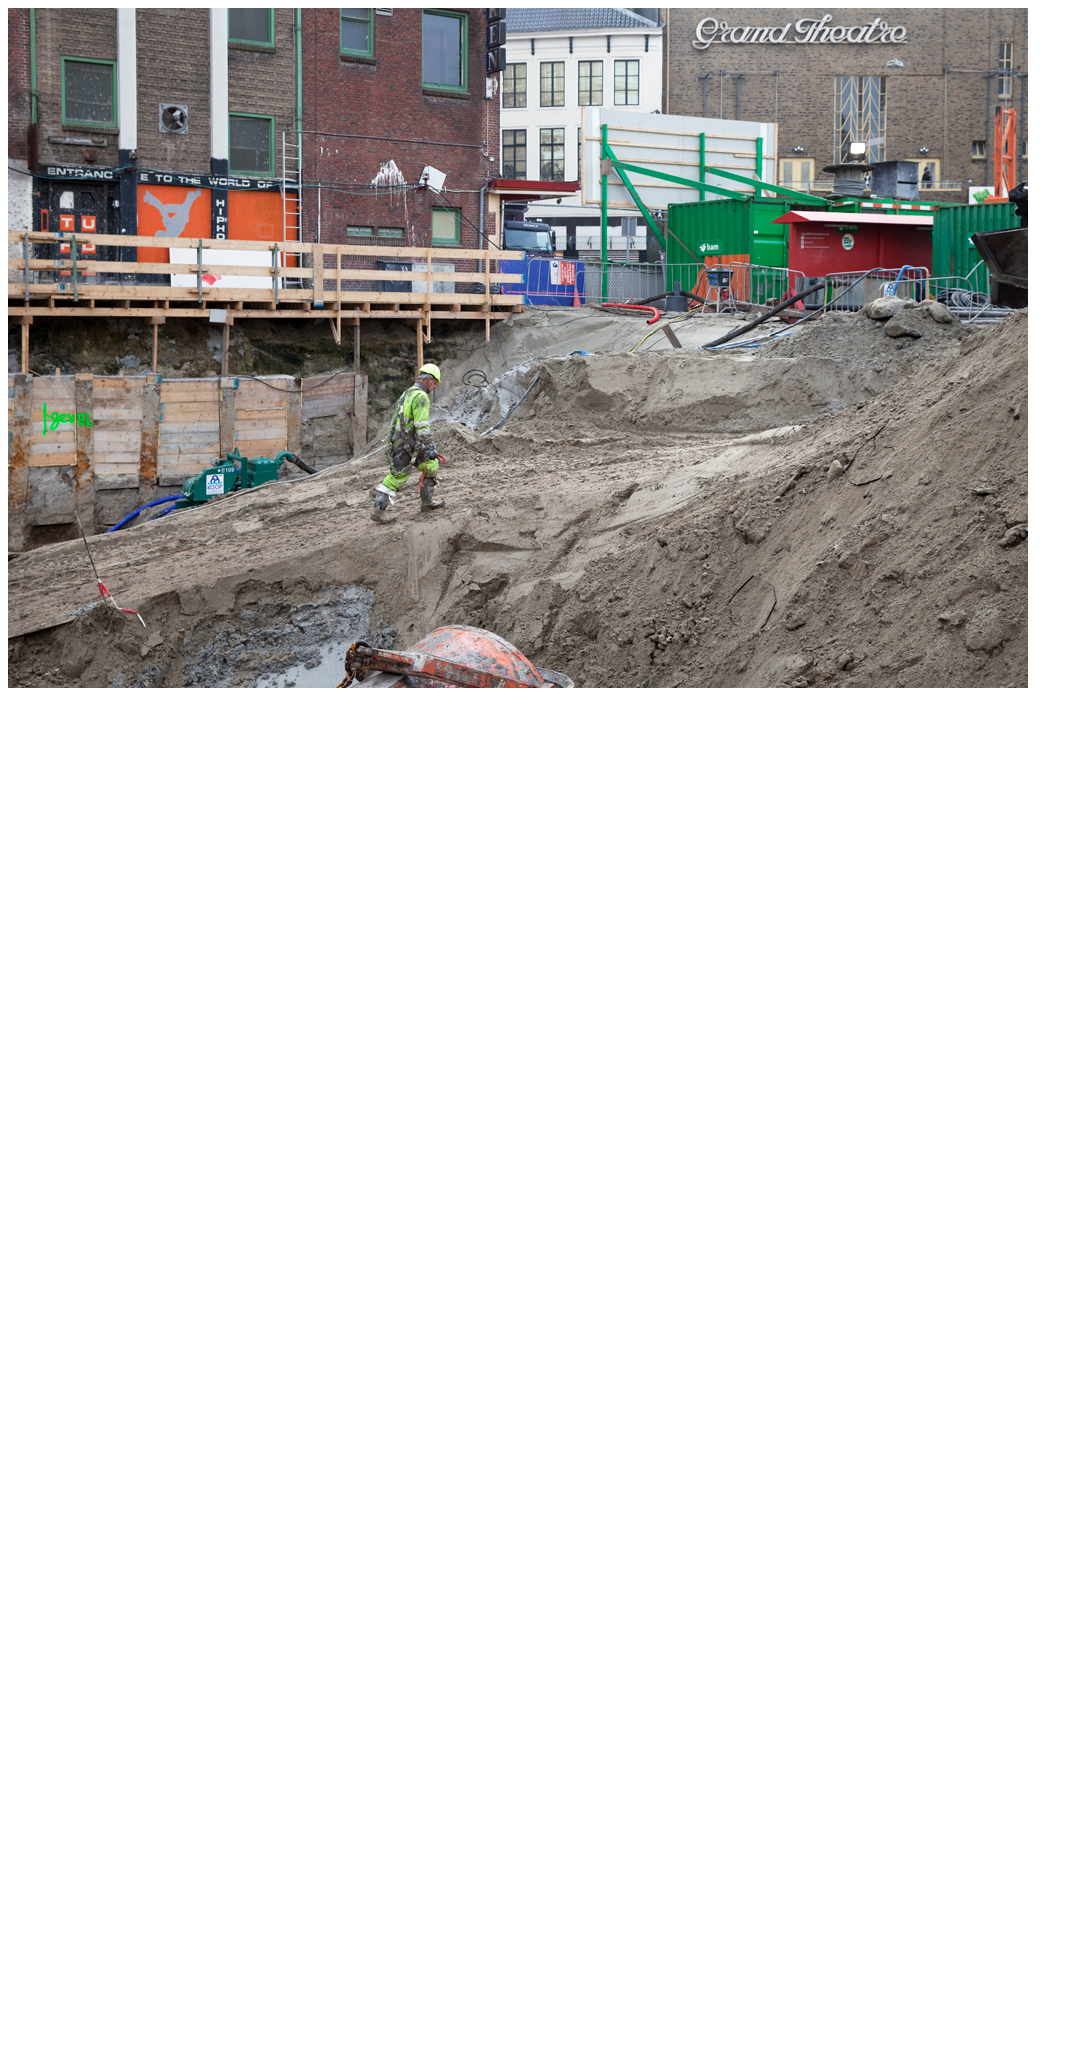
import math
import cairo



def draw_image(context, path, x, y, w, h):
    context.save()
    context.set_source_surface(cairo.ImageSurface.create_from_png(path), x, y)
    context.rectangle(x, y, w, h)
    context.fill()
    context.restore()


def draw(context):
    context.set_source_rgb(1, 1, 1)
    context.paint()
    draw_image(context, "images/1.png", 8, 8, 1020, 680)


surface = cairo.ImageSurface(cairo.Format.RGB24, 1074, 2054)
context = cairo.Context(surface)
options = cairo.FontOptions()
options.set_hint_metrics(cairo.HintMetrics.OFF)
options.set_hint_style(cairo.HintStyle.NONE)
context.set_font_options(options)
context.set_miter_limit(4)
draw(context)
surface.write_to_png("out.png")
